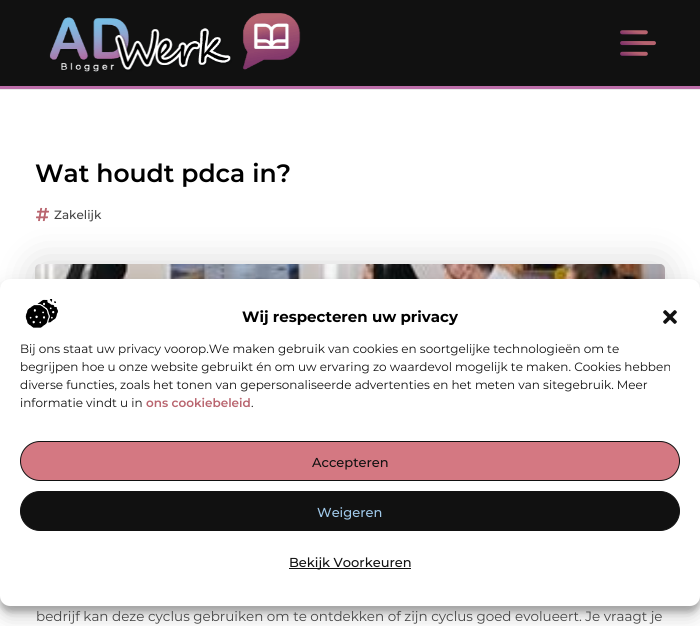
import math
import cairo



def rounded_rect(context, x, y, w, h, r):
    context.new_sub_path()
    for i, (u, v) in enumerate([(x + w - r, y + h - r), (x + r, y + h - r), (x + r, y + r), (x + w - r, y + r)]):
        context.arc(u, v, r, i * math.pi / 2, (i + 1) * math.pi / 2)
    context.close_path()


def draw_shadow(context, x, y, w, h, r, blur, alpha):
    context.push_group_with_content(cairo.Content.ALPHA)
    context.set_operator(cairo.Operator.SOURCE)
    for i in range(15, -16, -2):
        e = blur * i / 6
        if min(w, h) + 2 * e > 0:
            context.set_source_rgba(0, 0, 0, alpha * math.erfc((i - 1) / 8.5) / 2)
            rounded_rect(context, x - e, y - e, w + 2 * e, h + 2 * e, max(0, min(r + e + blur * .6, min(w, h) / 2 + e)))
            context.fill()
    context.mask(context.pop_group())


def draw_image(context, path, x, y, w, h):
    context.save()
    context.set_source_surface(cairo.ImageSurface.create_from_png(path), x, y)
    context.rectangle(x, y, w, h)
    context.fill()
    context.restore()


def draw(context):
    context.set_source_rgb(1, 1, 1)
    context.paint()
    context.set_source_rgb(0, 0, 0)
    draw_shadow(context, 0, 0, 700, 89, 0, 0.5, 0.33)
    context.set_source_rgb(17 / 255, 17 / 255, 17 / 255)
    context.rectangle(0, 0, 700, 86)
    context.fill()
    context.set_source_rgb(189 / 255, 110 / 255, 170 / 255)
    context.rectangle(0, 86, 700, 3)
    context.fill()
    draw_image(context, "images/1.png", 49, 13, 252, 59)
    draw_image(context, "images/2.png", 620, 30, 36, 26)
    draw_image(context, "images/4.png", 36, 207, 13, 15)
    context.set_source_rgb(0, 0, 0)
    draw_shadow(context, 35, 264, 630, 200, 5, 20, 0.16)
    draw_image(context, "images/3.png", 35, 264, 630, 15)
    draw_shadow(context, 0, 285, 700, 327, 10, 3, 0.23)
    draw_shadow(context, 0, 289, 700, 327, 10, 10, 0.19)
    context.set_source_rgb(1, 1, 1)
    rounded_rect(context, 0, 279, 700, 327, 10)
    context.fill()
    draw_image(context, "images/5.png", 25, 299, 33, 29)
    draw_image(context, "images/6.png", 663, 310, 14, 14)
    context.set_source_rgb(212 / 255, 120 / 255, 130 / 255)
    rounded_rect(context, 20.5, 441.5, 659, 39, 19.5)
    context.fill_preserve()
    context.set_source_rgb(17 / 255, 17 / 255, 17 / 255)
    context.set_line_width(1)
    context.stroke()
    rounded_rect(context, 20.5, 491.5, 659, 39, 19.5)
    context.fill_preserve()
    context.stroke()
    context.rectangle(289, 568, 122, 1)
    context.fill()
    context.select_font_face("Montserrat SemiBold")
    context.set_font_size(25)
    context.set_source_rgb(0, 0, 0)
    context.move_to(35, 182)
    context.show_text("Wat houdt pdca in?")
    context.select_font_face("Montserrat Medium")
    context.set_font_size(12)
    context.set_source_rgb(68 / 255, 68 / 255, 68 / 255)
    context.move_to(54, 219)
    context.show_text("Zakelijk")
    context.select_font_face("Montserrat")
    context.set_font_size(13.5)
    context.move_to(36, 621)
    context.show_text("bedrijf kan deze cyclus gebruiken om te ontdekken of zijn cyclus goed evolueert. Je vraagt je")
    context.select_font_face("Montserrat", cairo.FontSlant.NORMAL, cairo.FontWeight.BOLD)
    context.set_font_size(15)
    context.set_source_rgb(0, 0, 0)
    context.move_to(242, 322)
    context.show_text("Wij respecteren uw privacy")
    context.select_font_face("Montserrat")
    context.set_font_size(12)
    context.set_source_rgb(17 / 255, 17 / 255, 17 / 255)
    context.move_to(20, 353)
    context.show_text("Bij ons staat uw privacy voorop.We maken gebruik van cookies en soortgelijke technologieën om te")
    context.move_to(20, 371)
    context.show_text("begrijpen hoe u onze website gebruikt én om uw ervaring zo waardevol mogelijk te maken. Cookies hebben")
    context.move_to(20, 389)
    context.show_text("diverse functies, zoals het tonen van gepersonaliseerde advertenties en het meten van sitegebruik. Meer")
    context.move_to(20, 407)
    context.show_text("informatie vindt u in")
    context.select_font_face("Montserrat SemiBold")
    context.set_source_rgb(185 / 255, 101 / 255, 111 / 255)
    context.move_to(146, 407)
    context.show_text("ons cookiebeleid")
    context.select_font_face("Montserrat")
    context.set_source_rgb(17 / 255, 17 / 255, 17 / 255)
    context.move_to(251, 407)
    context.show_text(".")
    context.select_font_face("Montserrat Medium")
    context.set_font_size(13)
    context.move_to(312, 467)
    context.show_text("Accepteren")
    context.set_source_rgb(160 / 255, 201 / 255, 234 / 255)
    context.move_to(317, 517)
    context.show_text("Weigeren")
    context.set_source_rgb(17 / 255, 17 / 255, 17 / 255)
    context.move_to(289, 567)
    context.show_text("Bekijk Voorkeuren")


surface = cairo.ImageSurface(cairo.Format.RGB24, 700, 626)
context = cairo.Context(surface)
options = cairo.FontOptions()
options.set_hint_metrics(cairo.HintMetrics.OFF)
options.set_hint_style(cairo.HintStyle.NONE)
context.set_font_options(options)
context.set_miter_limit(4)
draw(context)
surface.write_to_png("out.png")
